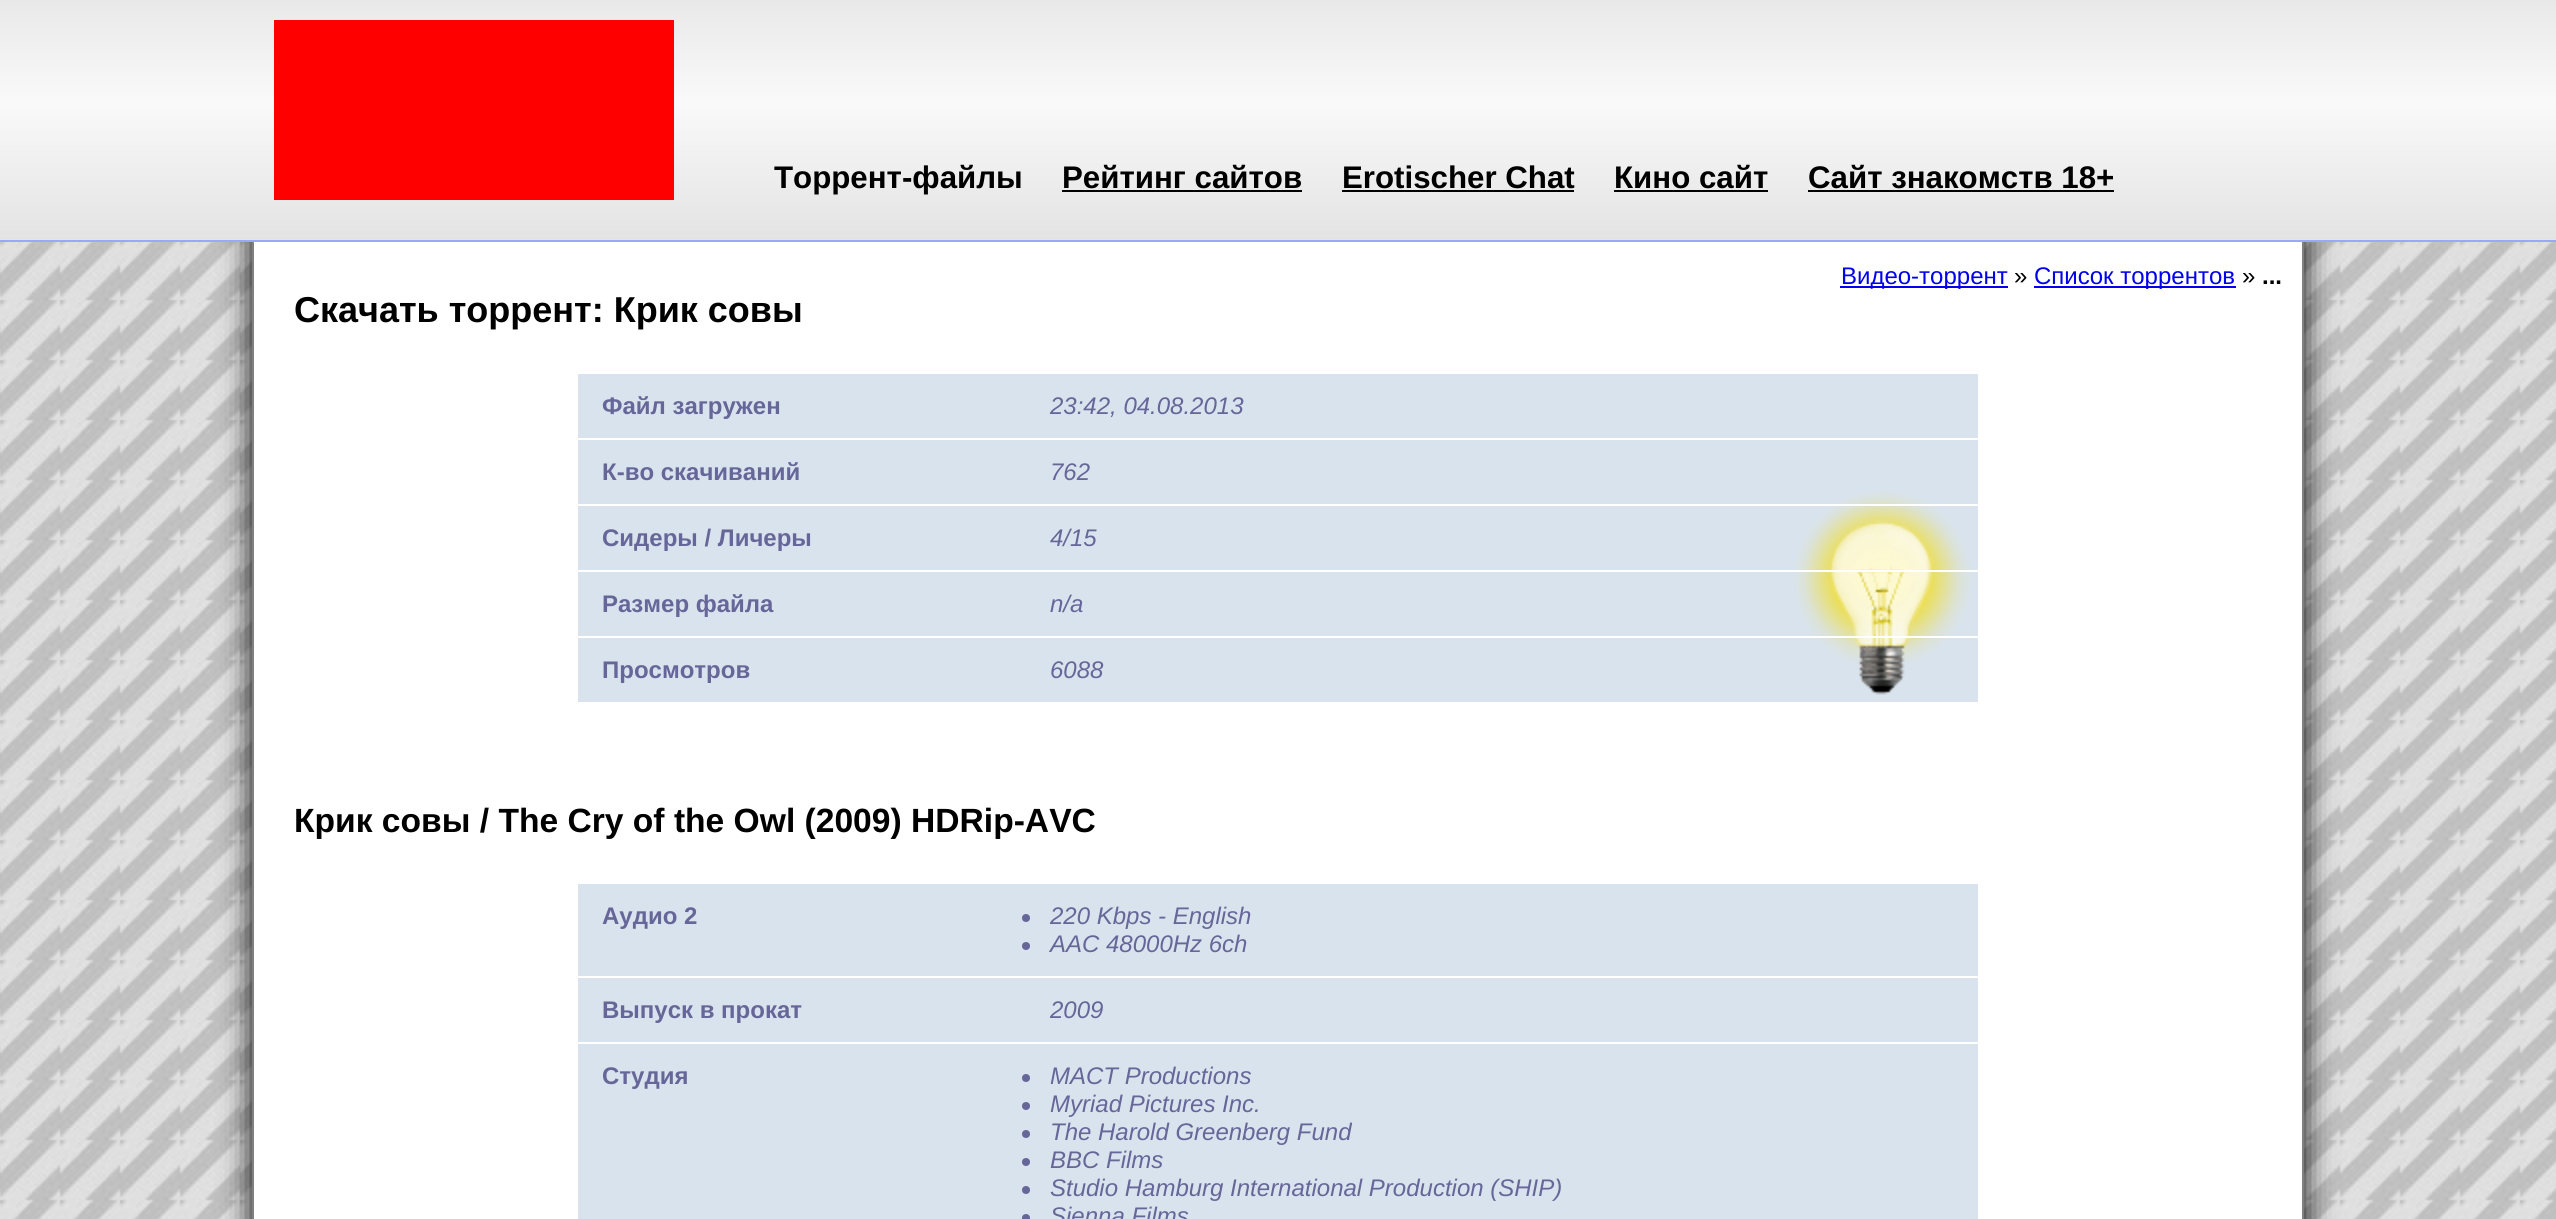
import math
import cairo



def rounded_rect(context, x, y, w, h, r):
    context.new_sub_path()
    for i, (u, v) in enumerate([(x + w - r, y + h - r), (x + r, y + h - r), (x + r, y + r), (x + w - r, y + r)]):
        context.arc(u, v, r, i * math.pi / 2, (i + 1) * math.pi / 2)
    context.close_path()


def draw_shadow(context, x, y, w, h, r, blur, alpha):
    context.push_group_with_content(cairo.Content.ALPHA)
    context.set_operator(cairo.Operator.SOURCE)
    for i in range(15, -16, -2):
        e = blur * i / 6
        if min(w, h) + 2 * e > 0:
            context.set_source_rgba(0, 0, 0, alpha * math.erfc((i - 1) / 8.5) / 2)
            rounded_rect(context, x - e, y - e, w + 2 * e, h + 2 * e, max(0, min(r + e + blur * .6, min(w, h) / 2 + e)))
            context.fill()
    context.mask(context.pop_group())


def draw_image(context, path, x, y, w, h):
    context.save()
    context.set_source_surface(cairo.ImageSurface.create_from_png(path), x, y)
    context.rectangle(x, y, w, h)
    context.fill()
    context.restore()


def draw(context):
    context.set_source_rgb(1, 1, 1)
    context.paint()
    draw_image(context, "images/1.png", 0, 242, 2556, 977)
    context.set_source_rgb(0, 0, 0)
    draw_shadow(context, 252, 0, 2052, 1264, 0, 15, 1)
    context.set_source_rgb(1, 1, 1)
    context.rectangle(254, 242, 2048, 977)
    context.fill()
    context.rectangle(253, 1, 2050, 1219)
    context.set_source_rgb(128 / 255, 128 / 255, 128 / 255)
    context.stroke()
    context.set_source_rgb(227 / 255, 227 / 255, 227 / 255)
    context.rectangle(0, 0, 2556, 240)
    context.fill()
    draw_image(context, "images/2.png", 0, 0, 2556, 240)
    context.set_source_rgb(155 / 255, 168 / 255, 248 / 255)
    context.rectangle(0, 240, 2556, 2)
    context.fill()
    context.set_source_rgb(1, 0, 0)
    context.rectangle(274, 20, 400, 180)
    context.fill()
    context.set_source_rgb(0, 0, 0)
    context.rectangle(1062, 190, 240, 2)
    context.fill()
    context.rectangle(1342, 190, 232, 2)
    context.fill()
    context.rectangle(1614, 190, 154, 2)
    context.fill()
    context.rectangle(1808, 190, 306, 2)
    context.fill()
    context.set_source_rgb(0, 0, 238 / 255)
    context.rectangle(1840, 286, 168, 2)
    context.fill()
    context.rectangle(2034, 286, 202, 2)
    context.fill()
    context.set_source_rgb(217 / 255, 227 / 255, 237 / 255)
    context.rectangle(578, 374, 1400, 328)
    context.fill()
    draw_image(context, "images/3.png", 578, 372, 1400, 323)
    context.rectangle(578, 884, 1400, 335)
    context.fill()
    draw_image(context, "images/4.png", 578, 882, 1400, 162)
    context.set_source_rgb(102 / 255, 102 / 255, 153 / 255)
    context.arc(1026, 918, 4, 0, 2 * math.pi)
    context.fill()
    context.arc(1026, 946, 4, 0, 2 * math.pi)
    context.fill()
    context.arc(1026, 1078, 4, 0, 2 * math.pi)
    context.fill()
    context.arc(1026, 1106, 4, 0, 2 * math.pi)
    context.fill()
    context.arc(1026, 1134, 4, 0, 2 * math.pi)
    context.fill()
    context.arc(1026, 1162, 4, 0, 2 * math.pi)
    context.fill()
    context.arc(1026, 1190, 4, 0, 2 * math.pi)
    context.fill()
    context.arc(1026, 1218, 4, 0, 2 * math.pi)
    context.fill()
    context.select_font_face("Liberation Sans", cairo.FontSlant.NORMAL, cairo.FontWeight.BOLD)
    context.set_font_size(31.25)
    context.set_source_rgb(0, 0, 0)
    context.move_to(774, 188)
    context.show_text("Торрент-файлы")
    context.move_to(1062, 188)
    context.show_text("Рейтинг сайтов")
    context.move_to(1342, 188)
    context.show_text("Erotischer Chat")
    context.move_to(1614, 188)
    context.show_text("Кино сайт")
    context.move_to(1808, 188)
    context.show_text("Сайт знакомств 18+")
    context.select_font_face("Liberation Sans")
    context.set_font_size(24)
    context.set_source_rgb(0, 0, 238 / 255)
    context.move_to(1841, 284)
    context.show_text("Видео-торрент")
    context.set_source_rgb(0, 0, 0)
    context.move_to(2014, 284)
    context.show_text("»")
    context.set_source_rgb(0, 0, 238 / 255)
    context.move_to(2034, 284)
    context.show_text("Список торрентов")
    context.set_source_rgb(0, 0, 0)
    context.move_to(2242, 284)
    context.show_text("»")
    context.select_font_face("Liberation Sans", cairo.FontSlant.NORMAL, cairo.FontWeight.BOLD)
    context.move_to(2262, 284)
    context.show_text("...")
    context.set_font_size(36)
    context.move_to(294, 322)
    context.show_text("Скачать торрент: Крик совы")
    context.set_font_size(24)
    context.set_source_rgb(102 / 255, 102 / 255, 153 / 255)
    context.move_to(602, 414)
    context.show_text("Файл загружен")
    context.select_font_face("Liberation Sans", cairo.FontSlant.ITALIC)
    context.move_to(1050, 414)
    context.show_text("23:42, 04.08.2013")
    context.select_font_face("Liberation Sans", cairo.FontSlant.NORMAL, cairo.FontWeight.BOLD)
    context.move_to(602, 480)
    context.show_text("К-во скачиваний")
    context.select_font_face("Liberation Sans", cairo.FontSlant.ITALIC)
    context.move_to(1050, 480)
    context.show_text("762")
    context.select_font_face("Liberation Sans", cairo.FontSlant.NORMAL, cairo.FontWeight.BOLD)
    context.move_to(602, 546)
    context.show_text("Сидеры / Личеры")
    context.select_font_face("Liberation Sans", cairo.FontSlant.ITALIC)
    context.move_to(1050, 546)
    context.show_text("4/15")
    context.select_font_face("Liberation Sans", cairo.FontSlant.NORMAL, cairo.FontWeight.BOLD)
    context.move_to(602, 612)
    context.show_text("Размер файла")
    context.select_font_face("Liberation Sans", cairo.FontSlant.ITALIC)
    context.move_to(1050, 612)
    context.show_text("n/a")
    context.select_font_face("Liberation Sans", cairo.FontSlant.NORMAL, cairo.FontWeight.BOLD)
    context.move_to(602, 678)
    context.show_text("Просмотров")
    context.select_font_face("Liberation Sans", cairo.FontSlant.ITALIC)
    context.move_to(1050, 678)
    context.show_text("6088")
    context.select_font_face("Liberation Sans", cairo.FontSlant.NORMAL, cairo.FontWeight.BOLD)
    context.set_font_size(33.6)
    context.set_source_rgb(0, 0, 0)
    context.move_to(294, 832)
    context.show_text("Крик совы / The Cry of the Owl (2009) HDRip-AVC")
    context.set_font_size(24)
    context.set_source_rgb(102 / 255, 102 / 255, 153 / 255)
    context.move_to(602, 924)
    context.show_text("Аудио 2")
    context.select_font_face("Liberation Sans", cairo.FontSlant.ITALIC)
    context.move_to(1050, 924)
    context.show_text("220 Kbps - English")
    context.move_to(1050, 952)
    context.show_text("AAC 48000Hz 6ch")
    context.select_font_face("Liberation Sans", cairo.FontSlant.NORMAL, cairo.FontWeight.BOLD)
    context.move_to(602, 1018)
    context.show_text("Выпуск в прокат")
    context.select_font_face("Liberation Sans", cairo.FontSlant.ITALIC)
    context.move_to(1050, 1018)
    context.show_text("2009")
    context.select_font_face("Liberation Sans", cairo.FontSlant.NORMAL, cairo.FontWeight.BOLD)
    context.move_to(602, 1084)
    context.show_text("Студия")
    context.select_font_face("Liberation Sans", cairo.FontSlant.ITALIC)
    context.move_to(1050, 1084)
    context.show_text("MACT Productions")
    context.move_to(1050, 1112)
    context.show_text("Myriad Pictures Inc.")
    context.move_to(1050, 1140)
    context.show_text("The Harold Greenberg Fund")
    context.move_to(1050, 1168)
    context.show_text("BBC Films")
    context.move_to(1050, 1196)
    context.show_text("Studio Hamburg International Production (SHIP)")
    context.move_to(1050, 1224)
    context.show_text("Sienna Films")


surface = cairo.ImageSurface(cairo.Format.RGB24, 2556, 1219)
context = cairo.Context(surface)
options = cairo.FontOptions()
options.set_hint_metrics(cairo.HintMetrics.OFF)
options.set_hint_style(cairo.HintStyle.NONE)
context.set_font_options(options)
context.set_miter_limit(4)
draw(context)
surface.write_to_png("out.png")
